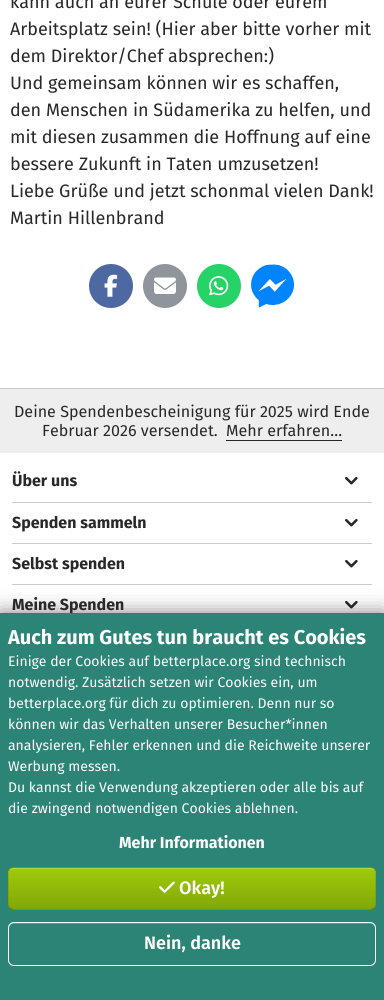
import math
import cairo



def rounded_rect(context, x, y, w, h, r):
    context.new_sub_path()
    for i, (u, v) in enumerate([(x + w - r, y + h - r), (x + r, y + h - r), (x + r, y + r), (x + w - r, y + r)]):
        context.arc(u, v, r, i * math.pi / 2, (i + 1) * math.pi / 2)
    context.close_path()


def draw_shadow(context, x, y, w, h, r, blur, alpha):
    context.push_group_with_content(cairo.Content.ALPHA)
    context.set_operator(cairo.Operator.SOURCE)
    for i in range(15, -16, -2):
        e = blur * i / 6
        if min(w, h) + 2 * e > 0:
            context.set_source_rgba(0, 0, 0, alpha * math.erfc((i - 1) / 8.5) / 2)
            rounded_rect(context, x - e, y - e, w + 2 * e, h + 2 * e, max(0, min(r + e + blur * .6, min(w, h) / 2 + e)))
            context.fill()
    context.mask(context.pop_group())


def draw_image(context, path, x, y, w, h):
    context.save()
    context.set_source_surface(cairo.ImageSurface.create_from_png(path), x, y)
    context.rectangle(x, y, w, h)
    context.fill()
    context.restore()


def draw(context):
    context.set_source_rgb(1, 1, 1)
    context.paint()
    context.set_source_rgb(78 / 255, 105 / 255, 162 / 255)
    context.arc(111, 286, 22, 0, 2 * math.pi)
    context.fill()
    draw_image(context, "images/1.png", 104, 274, 14, 23)
    context.set_source_rgb(144 / 255, 149 / 255, 155 / 255)
    context.arc(165, 286, 22, 0, 2 * math.pi)
    context.fill()
    draw_image(context, "images/2.png", 154, 277, 22, 17)
    context.set_source_rgb(37 / 255, 211 / 255, 102 / 255)
    context.arc(219, 286, 22, 0, 2 * math.pi)
    context.fill()
    draw_image(context, "images/3.png", 209, 276, 20, 20)
    draw_image(context, "images/4.png", 251, 264, 43, 44)
    context.set_source_rgb(204 / 255, 204 / 255, 204 / 255)
    context.rectangle(0, 388, 384, 1)
    context.fill()
    context.set_source_rgb(238 / 255, 238 / 255, 238 / 255)
    context.rectangle(0, 389, 384, 64)
    context.fill()
    context.set_source_rgb(40 / 255, 40 / 255, 40 / 255)
    context.rectangle(226, 440, 116, 1)
    context.fill()
    context.set_source_rgb(204 / 255, 204 / 255, 204 / 255)
    context.rectangle(12, 502, 360, 1)
    context.fill()
    draw_image(context, "images/5.png", 345, 476, 13, 9)
    context.rectangle(12, 543, 360, 1)
    context.fill()
    draw_image(context, "images/5.png", 345, 518, 13, 9)
    context.rectangle(12, 584, 360, 1)
    context.fill()
    draw_image(context, "images/5.png", 345, 559, 13, 9)
    draw_image(context, "images/5.png", 345, 600, 13, 9)
    context.set_source_rgb(0, 0, 0)
    draw_shadow(context, 0, 613, 384, 387, 0, 10, 0.5)
    context.select_font_face("Fira Sans")
    context.set_font_size(18)
    context.set_source_rgb(40 / 255, 40 / 255, 40 / 255)
    context.move_to(10, 8)
    context.show_text("kann auch an eurer Schule oder eurem")
    context.move_to(10, 35)
    context.show_text("Arbeitsplatz sein! (Hier aber bitte vorher mit")
    context.move_to(10, 62)
    context.show_text("dem Direktor/Chef absprechen:)")
    context.move_to(10, 89)
    context.show_text("Und gemeinsam können wir es schaffen,")
    context.move_to(10, 116)
    context.show_text("den Menschen in Südamerika zu helfen, und")
    context.move_to(10, 143)
    context.show_text("mit diesen zusammen die Hoffnung auf eine")
    context.move_to(10, 170)
    context.show_text("bessere Zukunft in Taten umzusetzen!")
    context.move_to(10, 197)
    context.show_text("Liebe Grüße und jetzt schonmal vielen Dank!")
    context.move_to(10, 224)
    context.show_text("Martin Hillenbrand")
    context.set_font_size(16.1)
    context.move_to(14, 417)
    context.show_text("Deine Spendenbescheinigung für 2025 wird Ende")
    context.move_to(42, 436)
    context.show_text("Februar 2026 versendet.")
    context.move_to(226, 436)
    context.show_text("Mehr erfahren…")
    context.select_font_face("Fira Sans", cairo.FontSlant.NORMAL, cairo.FontWeight.BOLD)
    context.set_font_size(16)
    context.move_to(12, 486)
    context.show_text("Über uns")
    context.move_to(12, 528)
    context.show_text("Spenden sammeln")
    context.move_to(12, 569)
    context.show_text("Selbst spenden")
    context.move_to(12, 610)
    context.show_text("Meine Spenden")
    context.set_source_rgb(43 / 255, 132 / 255, 117 / 255)
    context.rectangle(0, 613, 384, 387)
    context.fill()
    context.set_font_size(20)
    context.set_source_rgb(1, 1, 1)
    context.move_to(8, 644)
    context.show_text("Auch zum Gutes tun braucht es Cookies")
    context.select_font_face("Fira Sans")
    context.set_font_size(14)
    context.move_to(8, 666)
    context.show_text("Einige der Cookies auf betterplace.org sind technisch")
    context.move_to(8, 687)
    context.show_text("notwendig. Zusätzlich setzen wir Cookies ein, um")
    context.move_to(8, 708)
    context.show_text("betterplace.org für dich zu optimieren. Denn nur so")
    context.move_to(8, 729)
    context.show_text("können wir das Verhalten unserer Besucher*innen")
    context.move_to(8, 750)
    context.show_text("analysieren, Fehler erkennen und die Reichweite unserer")
    context.move_to(8, 771)
    context.show_text("Werbung messen.")
    context.move_to(8, 792)
    context.show_text("Du kannst die Verwendung akzeptieren oder alle bis auf")
    context.move_to(8, 813)
    context.show_text("die zwingend notwendigen Cookies ablehnen.")
    context.select_font_face("Fira Sans", cairo.FontSlant.NORMAL, cairo.FontWeight.BOLD)
    context.set_font_size(16)
    context.move_to(119, 848)
    context.show_text("Mehr Informationen")
    context.save()
    rounded_rect(context, 8, 867, 368, 43, 6)
    context.clip()
    gradient = cairo.LinearGradient(192, 827, 192, 868)
    gradient.add_color_stop_rgba(0, 158 / 255, 203 / 255, 10 / 255, 1)
    gradient.add_color_stop_rgba(1, 130 / 255, 167 / 255, 8 / 255, 1)
    context.set_source(gradient)
    context.rectangle(8, 867, 368, 1)
    context.fill()
    gradient = cairo.LinearGradient(192, 868, 192, 909)
    gradient.add_color_stop_rgba(0, 158 / 255, 203 / 255, 10 / 255, 1)
    gradient.add_color_stop_rgba(1, 130 / 255, 167 / 255, 8 / 255, 1)
    context.set_source(gradient)
    context.rectangle(8, 868, 368, 41)
    context.fill()
    gradient = cairo.LinearGradient(192, 909, 192, 950)
    gradient.add_color_stop_rgba(0, 158 / 255, 203 / 255, 10 / 255, 1)
    gradient.add_color_stop_rgba(1, 130 / 255, 167 / 255, 8 / 255, 1)
    context.set_source(gradient)
    context.rectangle(8, 909, 368, 1)
    context.fill()
    context.restore()
    context.set_source_rgb(177 / 255, 213 / 255, 59 / 255)
    context.new_path()
    context.move_to(14, 869)
    context.line_to(370, 869)
    context.curve_to(373, 869, 375, 871, 375, 874)
    context.line_to(375, 873)
    context.curve_to(375, 870, 373, 868, 370, 868)
    context.line_to(14, 868)
    context.curve_to(11, 868, 9, 870, 9, 873)
    context.line_to(9, 874)
    context.curve_to(9, 871, 11, 869, 14, 869)
    context.close_path()
    context.fill()
    context.new_path()
    context.move_to(374, 908)
    context.curve_to(373, 909, 371.5, 909.5, 370, 909.5)
    context.line_to(14, 909.5)
    context.curve_to(12.5, 909.5, 11, 909, 10, 908)
    context.set_source_rgba(0, 0, 0, 0.25)
    context.set_line_width(1)
    context.stroke()
    context.new_path()
    context.move_to(10, 908)
    context.curve_to(7, 904.5, 8.5, 897.5, 8.5, 893.5)
    context.line_to(8.5, 878)
    context.curve_to(8.5, 874, 8, 867.5, 14, 867.5)
    context.line_to(370, 867.5)
    context.curve_to(376, 867.5, 375.5, 874, 375.5, 878)
    context.line_to(375.5, 893.5)
    context.curve_to(375.5, 897.5, 377, 904.5, 374, 908)
    context.set_source_rgba(0, 0, 0, 0.1)
    context.stroke()
    draw_image(context, "images/6.png", 159, 881, 16, 12)
    context.select_font_face("Fira Sans SemiBold")
    context.set_font_size(18)
    context.set_source_rgb(1, 1, 1)
    context.move_to(179, 894)
    context.show_text("Okay!")
    context.set_source_rgb(85 / 255, 157 / 255, 145 / 255)
    context.new_path()
    context.move_to(14, 924)
    context.line_to(370, 924)
    context.curve_to(373, 924, 375, 926, 375, 929)
    context.line_to(375, 928)
    context.curve_to(375, 925, 373, 923, 370, 923)
    context.line_to(14, 923)
    context.curve_to(11, 923, 9, 925, 9, 928)
    context.line_to(9, 929)
    context.curve_to(9, 926, 11, 924, 14, 924)
    context.close_path()
    context.fill()
    rounded_rect(context, 8.5, 922.5, 367, 43, 5.5)
    context.set_source_rgb(1, 1, 1)
    context.stroke()
    context.move_to(144, 949)
    context.show_text("Nein, danke")


surface = cairo.ImageSurface(cairo.Format.RGB24, 384, 1000)
context = cairo.Context(surface)
options = cairo.FontOptions()
options.set_hint_metrics(cairo.HintMetrics.OFF)
options.set_hint_style(cairo.HintStyle.NONE)
context.set_font_options(options)
context.set_miter_limit(4)
draw(context)
surface.write_to_png("out.png")
